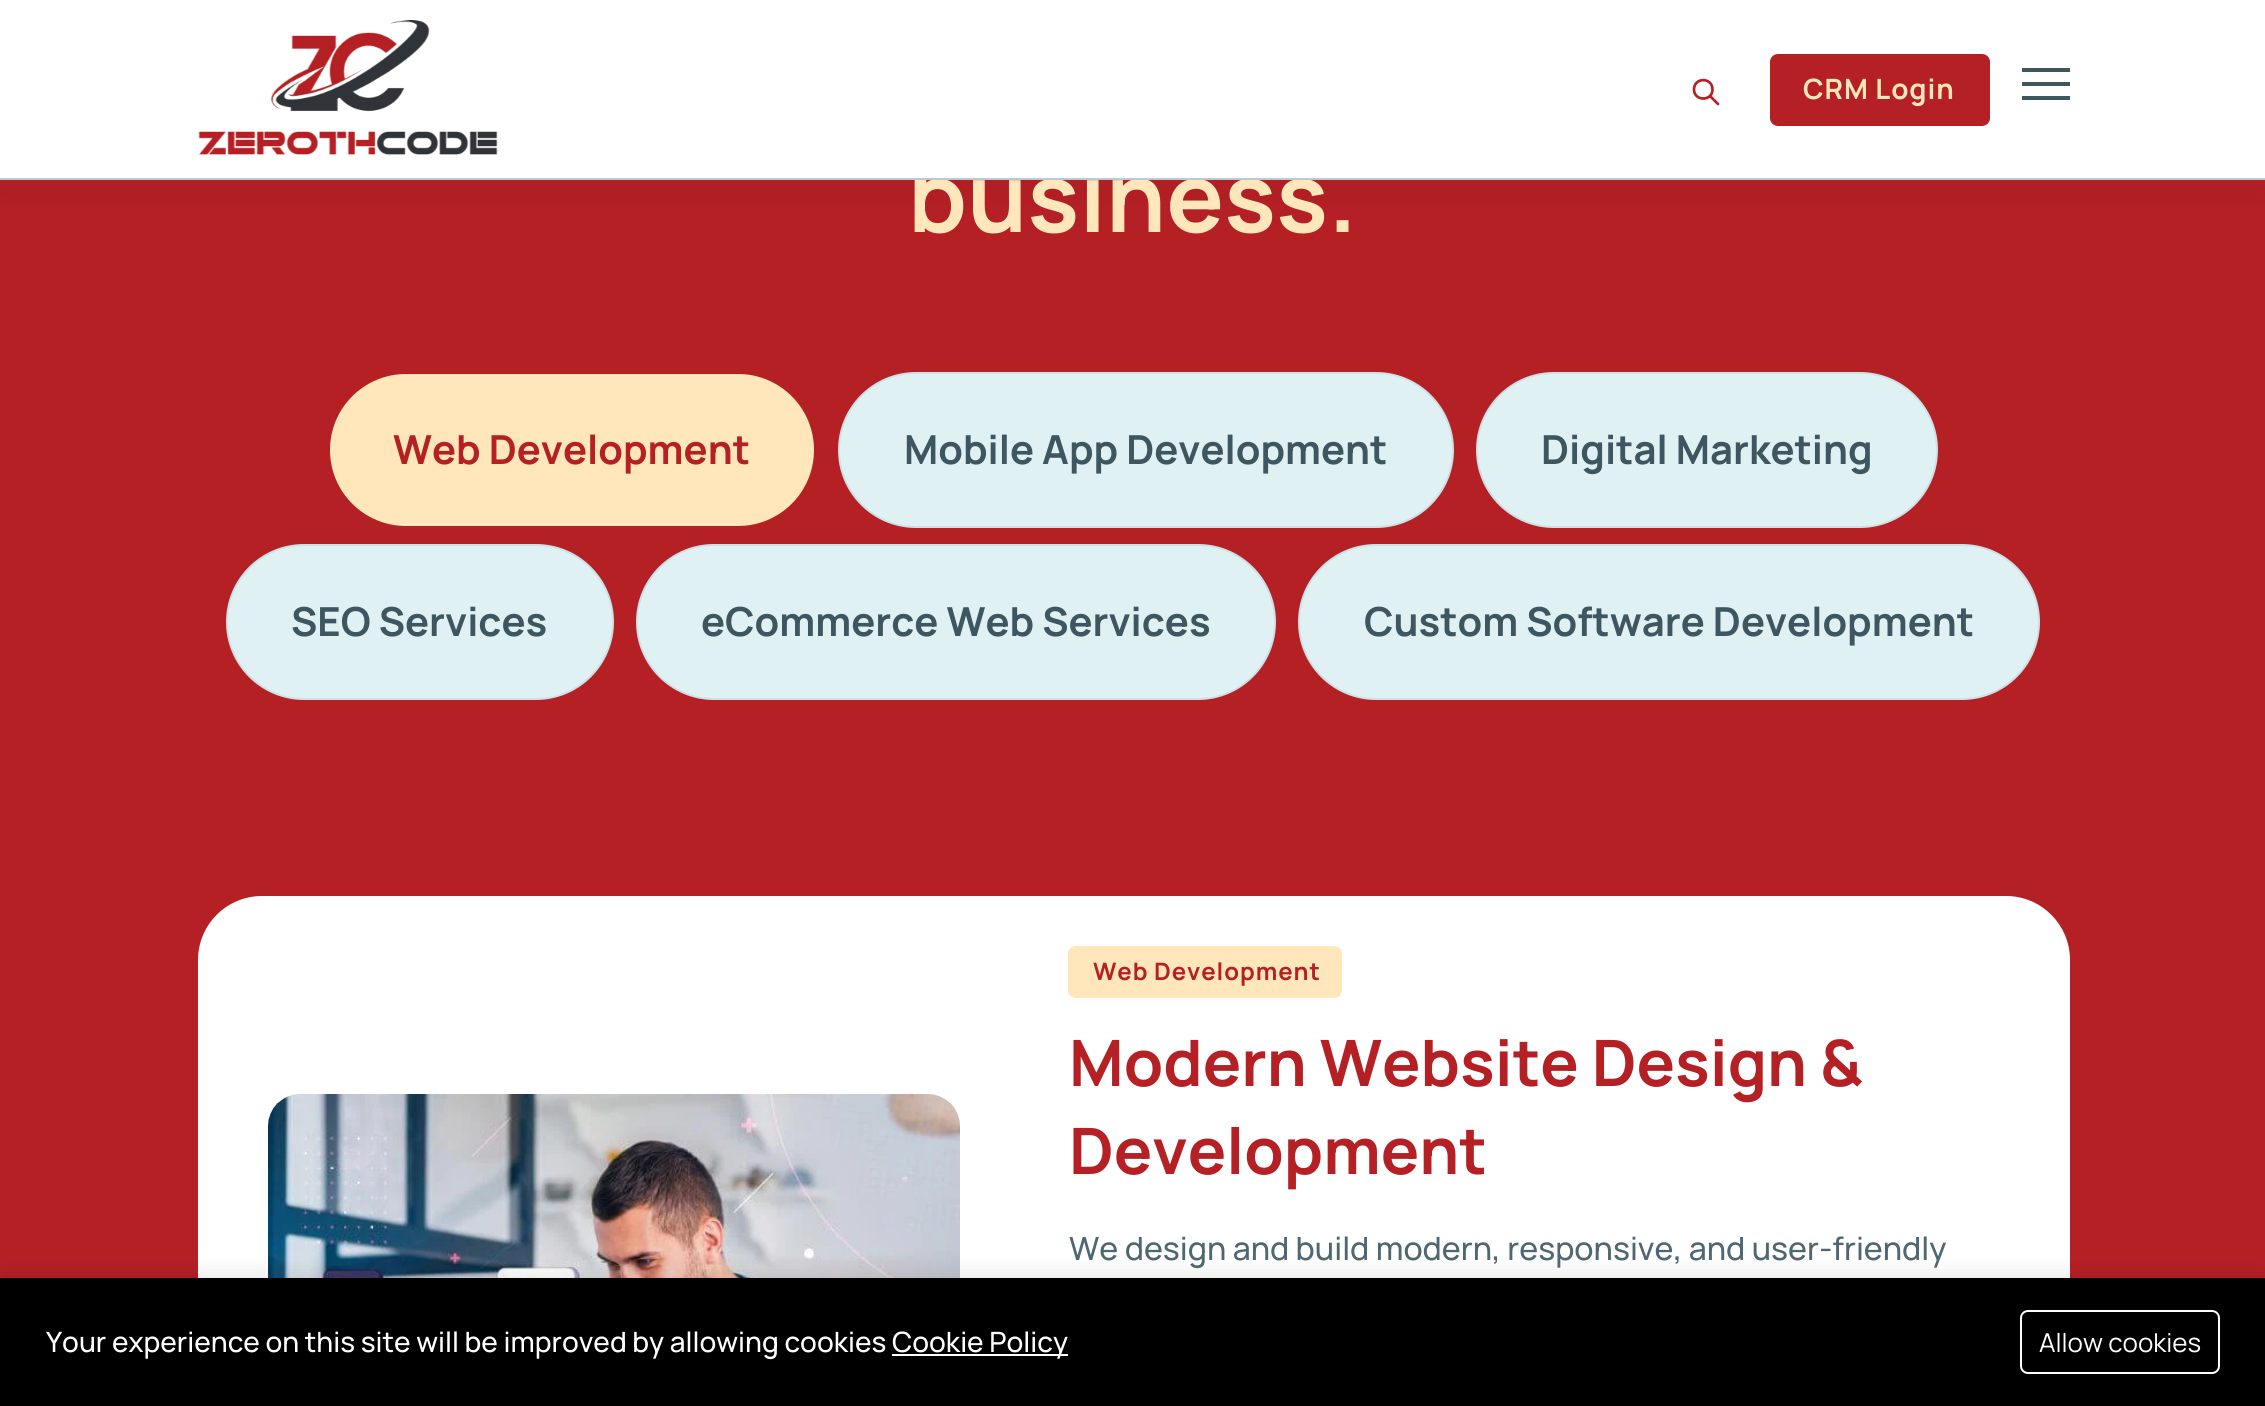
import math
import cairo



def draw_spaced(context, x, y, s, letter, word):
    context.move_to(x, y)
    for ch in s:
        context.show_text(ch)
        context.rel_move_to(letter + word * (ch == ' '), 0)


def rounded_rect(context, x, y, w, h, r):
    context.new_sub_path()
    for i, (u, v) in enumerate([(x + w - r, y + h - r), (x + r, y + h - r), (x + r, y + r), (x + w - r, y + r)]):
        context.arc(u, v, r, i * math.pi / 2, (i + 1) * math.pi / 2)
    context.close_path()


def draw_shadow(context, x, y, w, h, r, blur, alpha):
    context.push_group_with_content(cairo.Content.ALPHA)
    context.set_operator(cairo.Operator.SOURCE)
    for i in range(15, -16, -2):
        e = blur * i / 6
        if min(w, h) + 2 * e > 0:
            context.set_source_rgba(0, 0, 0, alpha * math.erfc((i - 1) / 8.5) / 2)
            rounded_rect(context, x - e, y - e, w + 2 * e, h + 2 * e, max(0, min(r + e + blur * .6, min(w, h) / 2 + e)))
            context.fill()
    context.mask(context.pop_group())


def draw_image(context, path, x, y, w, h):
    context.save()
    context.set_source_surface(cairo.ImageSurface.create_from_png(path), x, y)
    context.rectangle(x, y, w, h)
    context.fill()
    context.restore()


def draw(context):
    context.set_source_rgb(181 / 255, 32 / 255, 37 / 255)
    context.paint()
    context.set_source_rgb(0, 0, 0)
    draw_shadow(context, 0, 16, 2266, 180, 0, 20, 0.05)
    context.set_source_rgb(1, 231 / 255, 187 / 255)
    rounded_rect(context, 329, 373, 486, 154, 77)
    context.fill_preserve()
    context.set_source_rgb(181 / 255, 32 / 255, 37 / 255)
    context.stroke()
    context.set_source_rgb(224 / 255, 241 / 255, 244 / 255)
    rounded_rect(context, 839, 373, 614, 154, 77)
    context.fill_preserve()
    context.set_source_rgb(205 / 255, 226 / 255, 231 / 255)
    context.stroke()
    context.set_source_rgb(224 / 255, 241 / 255, 244 / 255)
    rounded_rect(context, 1477, 373, 460, 154, 77)
    context.fill_preserve()
    context.set_source_rgb(205 / 255, 226 / 255, 231 / 255)
    context.stroke()
    context.set_source_rgb(224 / 255, 241 / 255, 244 / 255)
    rounded_rect(context, 227, 545, 386, 154, 77)
    context.fill_preserve()
    context.set_source_rgb(205 / 255, 226 / 255, 231 / 255)
    context.stroke()
    context.set_source_rgb(224 / 255, 241 / 255, 244 / 255)
    rounded_rect(context, 637, 545, 638, 154, 77)
    context.fill_preserve()
    context.set_source_rgb(205 / 255, 226 / 255, 231 / 255)
    context.stroke()
    context.set_source_rgb(224 / 255, 241 / 255, 244 / 255)
    rounded_rect(context, 1299, 545, 740, 154, 77)
    context.fill_preserve()
    context.set_source_rgb(205 / 255, 226 / 255, 231 / 255)
    context.stroke()
    context.set_source_rgb(1, 1, 1)
    rounded_rect(context, 198, 896, 1872, 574, 64)
    context.fill()
    draw_image(context, "images/2.png", 268, 1094, 692, 184)
    context.set_source_rgb(1, 231 / 255, 187 / 255)
    rounded_rect(context, 1068, 946, 274, 52, 8)
    context.fill()
    context.set_source_rgb(0, 0, 0)
    draw_shadow(context, 0, 1274, 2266, 128, 0, 10, 0.1)
    context.set_source_rgb(0, 0, 0)
    context.rectangle(0, 1278, 2265, 128)
    context.fill()
    context.set_source_rgb(1, 1, 1)
    context.rectangle(892, 1354, 176, 2)
    context.fill()
    rounded_rect(context, 2021, 1311, 198, 62, 7)
    context.stroke()
    context.select_font_face("Manrope ExtraLight")
    context.set_font_size(96)
    context.set_source_rgb(1, 231 / 255, 187 / 255)
    context.move_to(908, 232)
    context.show_text("business.")
    context.set_source_rgb(1, 1, 1)
    context.rectangle(0, 0, 2265, 178)
    context.fill()
    context.set_source_rgb(61 / 255, 86 / 255, 95 / 255)
    context.rectangle(2022, 96, 48, 4)
    context.fill()
    context.rectangle(2022, 82, 48, 4)
    context.fill()
    context.rectangle(2022, 68, 48, 4)
    context.fill()
    context.set_source_rgb(181 / 255, 32 / 255, 37 / 255)
    rounded_rect(context, 1770, 54, 220, 72, 8)
    context.fill()
    context.set_font_size(28)
    context.set_source_rgb(1, 231 / 255, 187 / 255)
    draw_spaced(context, 1803, 99, "CRM Login", 0.9, 0)
    context.new_path()
    context.move_to(1718, 104)
    context.line_to(1710, 96)
    context.move_to(1712.5, 89.5)
    context.curve_to(1712.5, 101.5, 1694, 101.5, 1694, 89.5)
    context.curve_to(1694, 77, 1712.5, 77, 1712.5, 89.5)
    context.close_path()
    context.set_source_rgb(181 / 255, 32 / 255, 37 / 255)
    context.set_line_width(2.7)
    context.set_line_cap(cairo.LineCap.ROUND)
    context.set_line_join(cairo.LineJoin.ROUND)
    context.stroke()
    draw_image(context, "images/1.png", 198, 20, 300, 135)
    context.set_source_rgb(185 / 255, 202 / 255, 208 / 255)
    context.rectangle(0, 178, 2265, 2)
    context.fill()
    context.set_font_size(40)
    context.set_source_rgb(181 / 255, 32 / 255, 37 / 255)
    context.move_to(393, 464)
    context.show_text("Web Development")
    context.set_source_rgb(61 / 255, 86 / 255, 95 / 255)
    context.move_to(904, 464)
    context.show_text("Mobile App Development")
    context.move_to(1541, 464)
    context.show_text("Digital Marketing")
    context.move_to(291, 636)
    context.show_text("SEO Services")
    context.move_to(701, 636)
    context.show_text("eCommerce Web Services")
    context.move_to(1364, 636)
    context.show_text("Custom Software Development")
    context.set_font_size(24)
    context.set_source_rgb(181 / 255, 32 / 255, 37 / 255)
    draw_spaced(context, 1093, 980, "Web Development", 0.9, 0)
    context.set_font_size(64)
    context.move_to(1069, 1086)
    context.show_text("Modern Website Design &")
    context.move_to(1069, 1174)
    context.show_text("Development")
    context.select_font_face("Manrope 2 ExtraLight")
    context.set_font_size(32)
    context.set_source_rgb(78 / 255, 103 / 255, 112 / 255)
    context.move_to(1069, 1260)
    context.show_text("We design and build modern, responsive, and user-friendly")
    context.set_font_size(28)
    context.set_source_rgb(1, 1, 1)
    context.move_to(46, 1352)
    context.show_text("Your experience on this site will be improved by allowing cookies")
    context.move_to(892, 1352)
    context.show_text("Cookie Policy")
    context.select_font_face("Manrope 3 ExtraLight")
    context.set_font_size(26)
    context.move_to(2039, 1352)
    context.show_text("Allow cookies")


surface = cairo.ImageSurface(cairo.Format.RGB24, 2265, 1406)
context = cairo.Context(surface)
options = cairo.FontOptions()
options.set_hint_metrics(cairo.HintMetrics.OFF)
options.set_hint_style(cairo.HintStyle.NONE)
context.set_font_options(options)
context.set_miter_limit(4)
draw(context)
surface.write_to_png("out.png")
